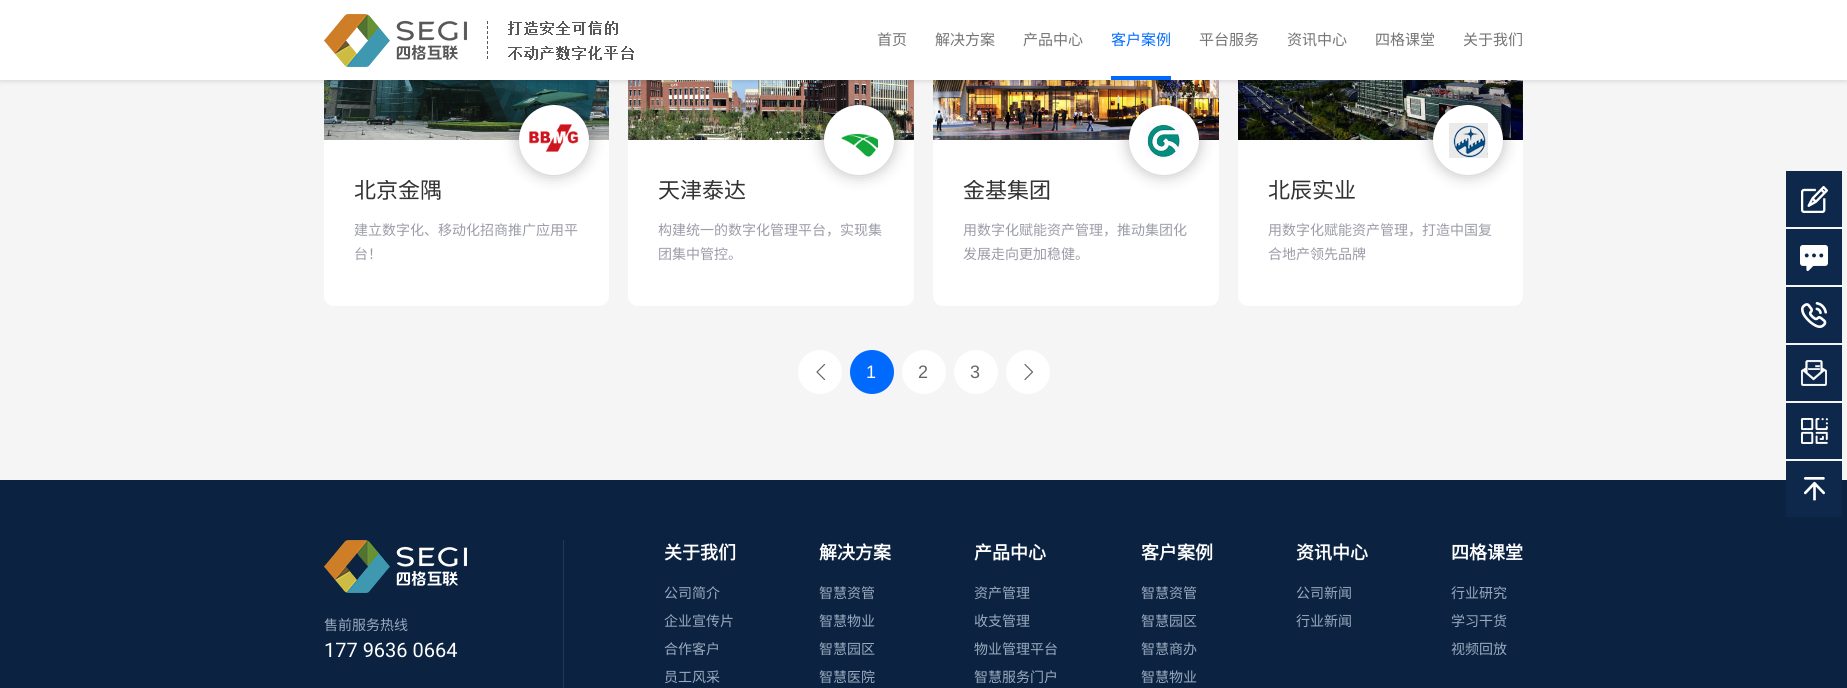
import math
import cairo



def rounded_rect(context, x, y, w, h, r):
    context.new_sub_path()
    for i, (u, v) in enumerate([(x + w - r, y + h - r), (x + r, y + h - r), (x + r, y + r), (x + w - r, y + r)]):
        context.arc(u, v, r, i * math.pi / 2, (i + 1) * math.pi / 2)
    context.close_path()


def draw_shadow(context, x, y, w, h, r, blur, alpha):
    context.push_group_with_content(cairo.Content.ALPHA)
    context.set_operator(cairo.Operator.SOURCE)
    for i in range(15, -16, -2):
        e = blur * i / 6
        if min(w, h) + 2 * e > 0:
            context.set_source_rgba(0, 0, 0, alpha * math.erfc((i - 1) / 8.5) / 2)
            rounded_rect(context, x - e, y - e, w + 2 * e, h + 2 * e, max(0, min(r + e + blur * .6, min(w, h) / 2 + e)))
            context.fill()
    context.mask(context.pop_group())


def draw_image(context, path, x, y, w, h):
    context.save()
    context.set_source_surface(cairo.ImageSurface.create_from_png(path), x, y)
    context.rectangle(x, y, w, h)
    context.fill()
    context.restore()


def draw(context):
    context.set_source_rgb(245 / 255, 245 / 255, 245 / 255)
    context.paint()
    draw_image(context, "images/3.png", 324, 80, 285, 60)
    draw_image(context, "images/5.png", 628, 80, 286, 60)
    draw_image(context, "images/7.png", 933, 80, 286, 60)
    draw_image(context, "images/9.png", 1238, 80, 285, 60)
    context.set_source_rgb(0, 0, 0)
    draw_shadow(context, 0, 2, 1847, 80, 0, 2, 0.1)
    context.set_source_rgb(1, 1, 1)
    context.rectangle(0, 0, 1847, 80)
    context.fill()
    draw_image(context, "images/1.png", 324, 14, 143, 53)
    context.new_path()
    context.move_to(487.5, 21)
    context.line_to(487.5, 59)
    context.set_source_rgb(89 / 255, 87 / 255, 87 / 255)
    context.set_line_width(1)
    context.set_dash([3, 2])
    context.stroke()
    draw_image(context, "images/2.png", 508, 21, 126, 39)
    context.set_source_rgb(0, 106 / 255, 1)
    context.rectangle(1111, 76, 60, 4)
    context.fill()
    context.set_source_rgb(1, 1, 1)
    context.new_path()
    context.move_to(324, 140)
    context.line_to(609, 140)
    context.line_to(609, 296)
    context.curve_to(609, 301.5, 604.5, 306, 599, 306)
    context.line_to(334, 306)
    context.curve_to(328.5, 306, 324, 301.5, 324, 296)
    context.close_path()
    context.fill()
    context.set_source_rgb(0, 0, 0)
    draw_shadow(context, 519, 105, 70, 70, 35, 8, 0.27)
    context.set_source_rgb(1, 1, 1)
    context.arc(554, 140, 35, 0, 2 * math.pi)
    context.fill()
    draw_image(context, "images/4.png", 529, 124, 50, 28)
    context.new_path()
    context.move_to(628, 140)
    context.line_to(914, 140)
    context.line_to(914, 296)
    context.curve_to(914, 301.5, 909.5, 306, 904, 306)
    context.line_to(638, 306)
    context.curve_to(632.5, 306, 628, 301.5, 628, 296)
    context.close_path()
    context.fill()
    context.set_source_rgb(0, 0, 0)
    draw_shadow(context, 824, 105, 70, 70, 35, 8, 0.27)
    context.set_source_rgb(1, 1, 1)
    context.arc(859, 140, 35, 0, 2 * math.pi)
    context.fill()
    draw_image(context, "images/6.png", 841, 133, 37, 24)
    context.new_path()
    context.move_to(933, 140)
    context.line_to(1219, 140)
    context.line_to(1219, 296)
    context.curve_to(1219, 301.5, 1214.5, 306, 1209, 306)
    context.line_to(943, 306)
    context.curve_to(937.5, 306, 933, 301.5, 933, 296)
    context.close_path()
    context.fill()
    context.set_source_rgb(0, 0, 0)
    draw_shadow(context, 1129, 105, 70, 70, 35, 8, 0.27)
    context.set_source_rgb(1, 1, 1)
    context.arc(1164, 140, 35, 0, 2 * math.pi)
    context.fill()
    draw_image(context, "images/8.png", 1146, 123, 37, 35)
    context.new_path()
    context.move_to(1238, 140)
    context.line_to(1523, 140)
    context.line_to(1523, 296)
    context.curve_to(1523, 301.5, 1518.5, 306, 1513, 306)
    context.line_to(1248, 306)
    context.curve_to(1242.5, 306, 1238, 301.5, 1238, 296)
    context.close_path()
    context.fill()
    context.set_source_rgb(0, 0, 0)
    draw_shadow(context, 1433, 105, 70, 70, 35, 8, 0.27)
    context.set_source_rgb(1, 1, 1)
    context.arc(1468, 140, 35, 0, 2 * math.pi)
    context.fill()
    draw_image(context, "images/10.png", 1449, 123, 39, 35)
    context.arc(820, 372, 22, 0, 2 * math.pi)
    context.fill()
    context.new_path()
    context.move_to(824.5, 379.5)
    context.line_to(817, 372)
    context.line_to(824.5, 364.5)
    context.set_source_rgb(102 / 255, 102 / 255, 102 / 255)
    context.set_line_width(1.2)
    context.set_line_cap(cairo.LineCap.ROUND)
    context.set_line_join(cairo.LineJoin.ROUND)
    context.set_dash([])
    context.stroke()
    context.set_source_rgb(0, 106 / 255, 1)
    context.arc(872, 372, 22, 0, 2 * math.pi)
    context.fill()
    context.set_source_rgb(1, 1, 1)
    context.arc(924, 372, 22, 0, 2 * math.pi)
    context.fill()
    context.arc(976, 372, 22, 0, 2 * math.pi)
    context.fill()
    context.arc(1028, 372, 22, 0, 2 * math.pi)
    context.fill()
    context.new_path()
    context.move_to(1025, 364.5)
    context.line_to(1032.5, 372)
    context.line_to(1025, 379.5)
    context.set_source_rgb(102 / 255, 102 / 255, 102 / 255)
    context.stroke()
    context.set_source_rgb(14 / 255, 40 / 255, 76 / 255)
    context.rectangle(1786, 171, 56, 56)
    context.fill()
    draw_image(context, "images/11.png", 1801, 186, 27, 27)
    context.rectangle(1786, 229, 56, 56)
    context.fill()
    draw_image(context, "images/12.png", 1800, 245, 28, 26)
    context.rectangle(1786, 287, 56, 56)
    context.fill()
    draw_image(context, "images/13.png", 1801, 302, 26, 26)
    context.rectangle(1786, 345, 56, 56)
    context.fill()
    draw_image(context, "images/14.png", 1801, 360, 26, 26)
    context.rectangle(1786, 403, 56, 56)
    context.fill()
    draw_image(context, "images/15.png", 1801, 418, 27, 26)
    context.set_source_rgb(11 / 255, 34 / 255, 65 / 255)
    context.rectangle(0, 480, 1847, 208)
    context.fill()
    context.set_source_rgb(14 / 255, 40 / 255, 76 / 255)
    context.rectangle(1786, 461, 56, 56)
    context.fill()
    draw_image(context, "images/16.png", 1804, 477, 21, 24)
    draw_image(context, "images/17.png", 324, 540, 143, 53)
    context.set_source_rgb(35 / 255, 56 / 255, 84 / 255)
    context.rectangle(563, 540, 1, 148)
    context.fill()
    context.select_font_face("Noto Sans CJK SC")
    context.set_font_size(15)
    context.set_source_rgb(116 / 255, 116 / 255, 116 / 255)
    context.move_to(877, 45)
    context.show_text("首页")
    context.move_to(935, 45)
    context.show_text("解决方案")
    context.move_to(1023, 45)
    context.show_text("产品中心")
    context.set_source_rgb(0, 106 / 255, 1)
    context.move_to(1111, 45)
    context.show_text("客户案例")
    context.set_source_rgb(116 / 255, 116 / 255, 116 / 255)
    context.move_to(1199, 45)
    context.show_text("平台服务")
    context.move_to(1287, 45)
    context.show_text("资讯中心")
    context.move_to(1375, 45)
    context.show_text("四格课堂")
    context.move_to(1463, 45)
    context.show_text("关于我们")
    context.save()
    context.rectangle(354, 180, 225, 22)
    context.clip()
    context.set_font_size(22)
    context.set_source_rgb(51 / 255, 51 / 255, 51 / 255)
    context.move_to(354, 198)
    context.show_text("北京金隅")
    context.restore()
    context.set_font_size(14)
    context.set_source_rgb(155 / 255, 156 / 255, 168 / 255)
    context.move_to(354, 235)
    context.show_text("建立数字化、移动化招商推广应用平")
    context.move_to(354, 259)
    context.show_text("台！")
    context.save()
    context.rectangle(658, 180, 226, 22)
    context.clip()
    context.set_font_size(22)
    context.set_source_rgb(51 / 255, 51 / 255, 51 / 255)
    context.move_to(658, 198)
    context.show_text("天津泰达")
    context.restore()
    context.move_to(658, 235)
    context.show_text("构建统一的数字化管理平台，实现集")
    context.move_to(658, 259)
    context.show_text("团集中管控。")
    context.save()
    context.rectangle(963, 180, 226, 22)
    context.clip()
    context.set_font_size(22)
    context.set_source_rgb(51 / 255, 51 / 255, 51 / 255)
    context.move_to(963, 198)
    context.show_text("金基集团")
    context.restore()
    context.move_to(963, 235)
    context.show_text("用数字化赋能资产管理，推动集团化")
    context.move_to(963, 259)
    context.show_text("发展走向更加稳健。")
    context.save()
    context.rectangle(1268, 180, 225, 22)
    context.clip()
    context.set_font_size(22)
    context.set_source_rgb(51 / 255, 51 / 255, 51 / 255)
    context.move_to(1268, 198)
    context.show_text("北辰实业")
    context.restore()
    context.move_to(1268, 235)
    context.show_text("用数字化赋能资产管理，打造中国复")
    context.move_to(1268, 259)
    context.show_text("合地产领先品牌")
    context.select_font_face("Liberation Sans")
    context.set_font_size(18)
    context.set_source_rgb(1, 1, 1)
    context.move_to(866, 378)
    context.show_text("1")
    context.set_source_rgb(102 / 255, 102 / 255, 102 / 255)
    context.move_to(918, 378)
    context.show_text("2")
    context.move_to(970, 378)
    context.show_text("3")
    context.select_font_face("Noto Sans CJK SC")
    context.set_font_size(14)
    context.set_source_rgb(153 / 255, 170 / 255, 190 / 255)
    context.move_to(324, 630)
    context.show_text("售前服务热线")
    context.select_font_face("Roboto")
    context.set_font_size(20)
    context.set_source_rgb(1, 1, 1)
    context.move_to(324, 657)
    context.show_text("177 9636 0664")
    context.select_font_face("Noto Sans CJK SC", cairo.FontSlant.NORMAL, cairo.FontWeight.BOLD)
    context.set_font_size(18)
    context.move_to(664, 559)
    context.show_text("关于我们")
    context.select_font_face("Noto Sans CJK SC")
    context.set_font_size(14)
    context.set_source_rgb(153 / 255, 170 / 255, 190 / 255)
    context.move_to(664, 598)
    context.show_text("公司简介")
    context.move_to(664, 626)
    context.show_text("企业宣传片")
    context.move_to(664, 654)
    context.show_text("合作客户")
    context.move_to(664, 682)
    context.show_text("员工风采")
    context.select_font_face("Noto Sans CJK SC", cairo.FontSlant.NORMAL, cairo.FontWeight.BOLD)
    context.set_font_size(18)
    context.set_source_rgb(1, 1, 1)
    context.move_to(819, 559)
    context.show_text("解决方案")
    context.select_font_face("Noto Sans CJK SC")
    context.set_font_size(14)
    context.set_source_rgb(153 / 255, 170 / 255, 190 / 255)
    context.move_to(819, 598)
    context.show_text("智慧资管")
    context.move_to(819, 626)
    context.show_text("智慧物业")
    context.move_to(819, 654)
    context.show_text("智慧园区")
    context.move_to(819, 682)
    context.show_text("智慧医院")
    context.select_font_face("Noto Sans CJK SC", cairo.FontSlant.NORMAL, cairo.FontWeight.BOLD)
    context.set_font_size(18)
    context.set_source_rgb(1, 1, 1)
    context.move_to(974, 559)
    context.show_text("产品中心")
    context.select_font_face("Noto Sans CJK SC")
    context.set_font_size(14)
    context.set_source_rgb(153 / 255, 170 / 255, 190 / 255)
    context.move_to(974, 598)
    context.show_text("资产管理")
    context.move_to(974, 626)
    context.show_text("收支管理")
    context.move_to(974, 654)
    context.show_text("物业管理平台")
    context.move_to(974, 682)
    context.show_text("智慧服务门户")
    context.select_font_face("Noto Sans CJK SC", cairo.FontSlant.NORMAL, cairo.FontWeight.BOLD)
    context.set_font_size(18)
    context.set_source_rgb(1, 1, 1)
    context.move_to(1141, 559)
    context.show_text("客户案例")
    context.select_font_face("Noto Sans CJK SC")
    context.set_font_size(14)
    context.set_source_rgb(153 / 255, 170 / 255, 190 / 255)
    context.move_to(1141, 598)
    context.show_text("智慧资管")
    context.move_to(1141, 626)
    context.show_text("智慧园区")
    context.move_to(1141, 654)
    context.show_text("智慧商办")
    context.move_to(1141, 682)
    context.show_text("智慧物业")
    context.select_font_face("Noto Sans CJK SC", cairo.FontSlant.NORMAL, cairo.FontWeight.BOLD)
    context.set_font_size(18)
    context.set_source_rgb(1, 1, 1)
    context.move_to(1296, 559)
    context.show_text("资讯中心")
    context.select_font_face("Noto Sans CJK SC")
    context.set_font_size(14)
    context.set_source_rgb(153 / 255, 170 / 255, 190 / 255)
    context.move_to(1296, 598)
    context.show_text("公司新闻")
    context.move_to(1296, 626)
    context.show_text("行业新闻")
    context.select_font_face("Noto Sans CJK SC", cairo.FontSlant.NORMAL, cairo.FontWeight.BOLD)
    context.set_font_size(18)
    context.set_source_rgb(1, 1, 1)
    context.move_to(1451, 559)
    context.show_text("四格课堂")
    context.select_font_face("Noto Sans CJK SC")
    context.set_font_size(14)
    context.set_source_rgb(153 / 255, 170 / 255, 190 / 255)
    context.move_to(1451, 598)
    context.show_text("行业研究")
    context.move_to(1451, 626)
    context.show_text("学习干货")
    context.move_to(1451, 654)
    context.show_text("视频回放")


surface = cairo.ImageSurface(cairo.Format.RGB24, 1847, 688)
context = cairo.Context(surface)
options = cairo.FontOptions()
options.set_hint_metrics(cairo.HintMetrics.OFF)
options.set_hint_style(cairo.HintStyle.NONE)
context.set_font_options(options)
context.set_miter_limit(4)
draw(context)
surface.write_to_png("out.png")
